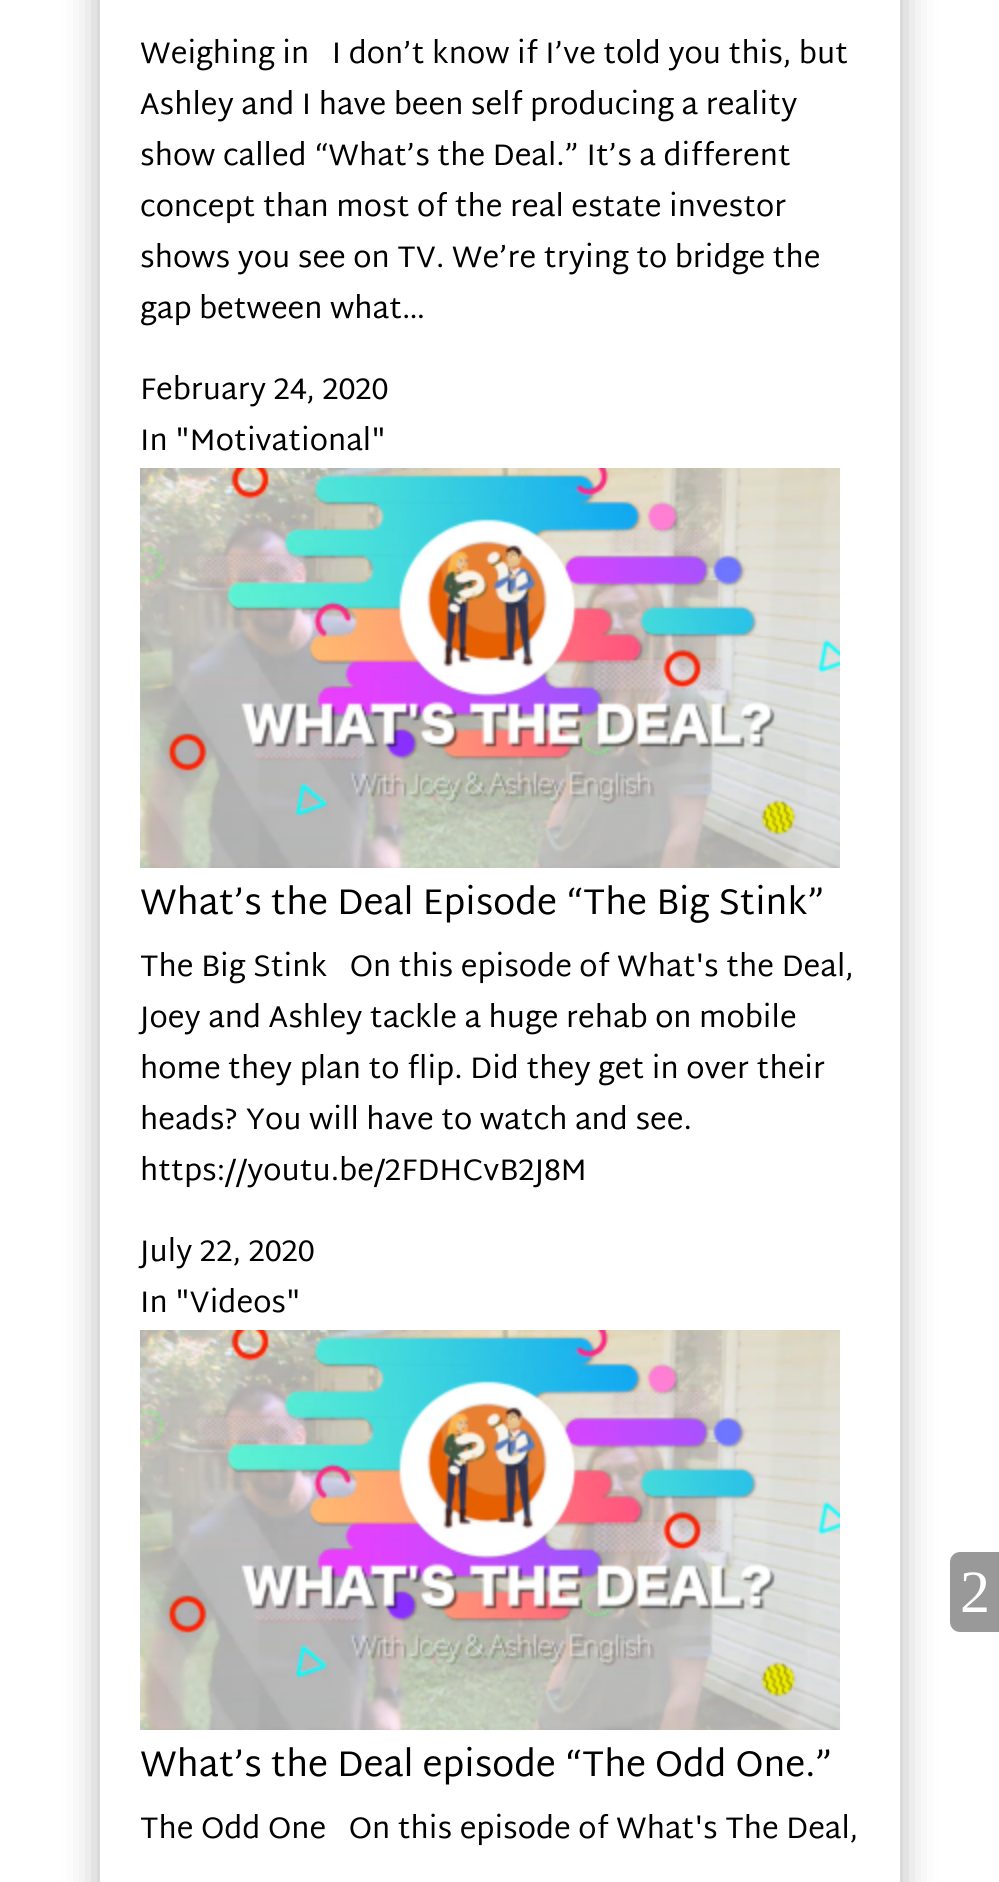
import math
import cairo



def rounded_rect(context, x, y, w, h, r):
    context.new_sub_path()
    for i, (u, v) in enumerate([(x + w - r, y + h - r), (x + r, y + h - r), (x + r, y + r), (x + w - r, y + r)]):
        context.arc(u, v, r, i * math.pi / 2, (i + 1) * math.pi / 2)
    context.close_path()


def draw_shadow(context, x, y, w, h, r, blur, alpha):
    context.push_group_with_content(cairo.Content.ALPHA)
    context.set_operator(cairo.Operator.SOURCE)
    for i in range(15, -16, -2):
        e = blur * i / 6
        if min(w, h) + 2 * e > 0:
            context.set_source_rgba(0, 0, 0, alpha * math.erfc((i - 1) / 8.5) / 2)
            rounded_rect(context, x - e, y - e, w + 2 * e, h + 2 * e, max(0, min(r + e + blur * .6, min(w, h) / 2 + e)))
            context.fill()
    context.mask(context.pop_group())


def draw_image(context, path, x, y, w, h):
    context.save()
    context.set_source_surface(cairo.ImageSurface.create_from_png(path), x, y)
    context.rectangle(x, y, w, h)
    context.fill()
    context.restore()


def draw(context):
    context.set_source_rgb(1, 1, 1)
    context.paint()
    context.save()
    context.set_fill_rule(cairo.FillRule.EVEN_ODD)
    context.new_path()
    context.move_to(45, 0)
    context.line_to(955, 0)
    context.line_to(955, 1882)
    context.line_to(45, 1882)
    context.close_path()
    context.move_to(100, -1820)
    context.line_to(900, -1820)
    context.line_to(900, 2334)
    context.line_to(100, 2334)
    context.close_path()
    context.clip()
    context.set_source_rgb(0, 0, 0)
    draw_shadow(context, 100, -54, 800, 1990, 0, 18, 0.3)
    context.restore()
    draw_image(context, "images/1.png", 140, 468, 700, 400)
    draw_image(context, "images/1.png", 140, 1330, 700, 400)
    context.set_source_rgb(153 / 255, 153 / 255, 153 / 255)
    context.new_path()
    context.move_to(960, 1552)
    context.line_to(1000, 1552)
    context.line_to(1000, 1632)
    context.line_to(960, 1632)
    context.curve_to(954.5, 1632, 950, 1627.5, 950, 1622)
    context.line_to(950, 1562)
    context.curve_to(950, 1556.5, 954.5, 1552, 960, 1552)
    context.close_path()
    context.fill()
    context.select_font_face("Martel Sans")
    context.set_font_size(30)
    context.set_source_rgb(0, 0, 0)
    context.move_to(140, 63)
    context.show_text("Weighing in   I don’t know if I’ve told you this, but")
    context.move_to(140, 114)
    context.show_text("Ashley and I have been self producing a reality")
    context.move_to(140, 165)
    context.show_text("show called “What’s the Deal.” It’s a different")
    context.move_to(140, 216)
    context.show_text("concept than most of the real estate investor")
    context.move_to(140, 267)
    context.show_text("shows you see on TV. We’re trying to bridge the")
    context.move_to(140, 318)
    context.show_text("gap between what…")
    context.move_to(140, 399)
    context.show_text("February 24, 2020")
    context.move_to(140, 450)
    context.show_text("In \"Motivational\"")
    context.set_font_size(36)
    context.move_to(140, 914)
    context.show_text("What’s the Deal Episode “The Big Stink”")
    context.set_font_size(30)
    context.move_to(140, 976)
    context.show_text("The Big Stink   On this episode of What's the Deal,")
    context.move_to(140, 1027)
    context.show_text("Joey and Ashley tackle a huge rehab on mobile")
    context.move_to(140, 1078)
    context.show_text("home they plan to flip. Did they get in over their")
    context.move_to(140, 1129)
    context.show_text("heads? You will have to watch and see.")
    context.move_to(140, 1180)
    context.show_text("https://youtu.be/2FDHCvB2J8M")
    context.move_to(140, 1261)
    context.show_text("July 22, 2020")
    context.move_to(140, 1312)
    context.show_text("In \"Videos\"")
    context.set_font_size(36)
    context.move_to(140, 1776)
    context.show_text("What’s the Deal episode “The Odd One.”")
    context.set_font_size(30)
    context.move_to(140, 1838)
    context.show_text("The Odd One   On this episode of What's The Deal,")
    context.select_font_face("Liberation Serif")
    context.set_font_size(60)
    context.set_source_rgb(1, 1, 1)
    context.move_to(960, 1612)
    context.show_text("2")


surface = cairo.ImageSurface(cairo.Format.RGB24, 999, 1882)
context = cairo.Context(surface)
options = cairo.FontOptions()
options.set_hint_metrics(cairo.HintMetrics.OFF)
options.set_hint_style(cairo.HintStyle.NONE)
context.set_font_options(options)
context.set_miter_limit(4)
draw(context)
surface.write_to_png("out.png")
